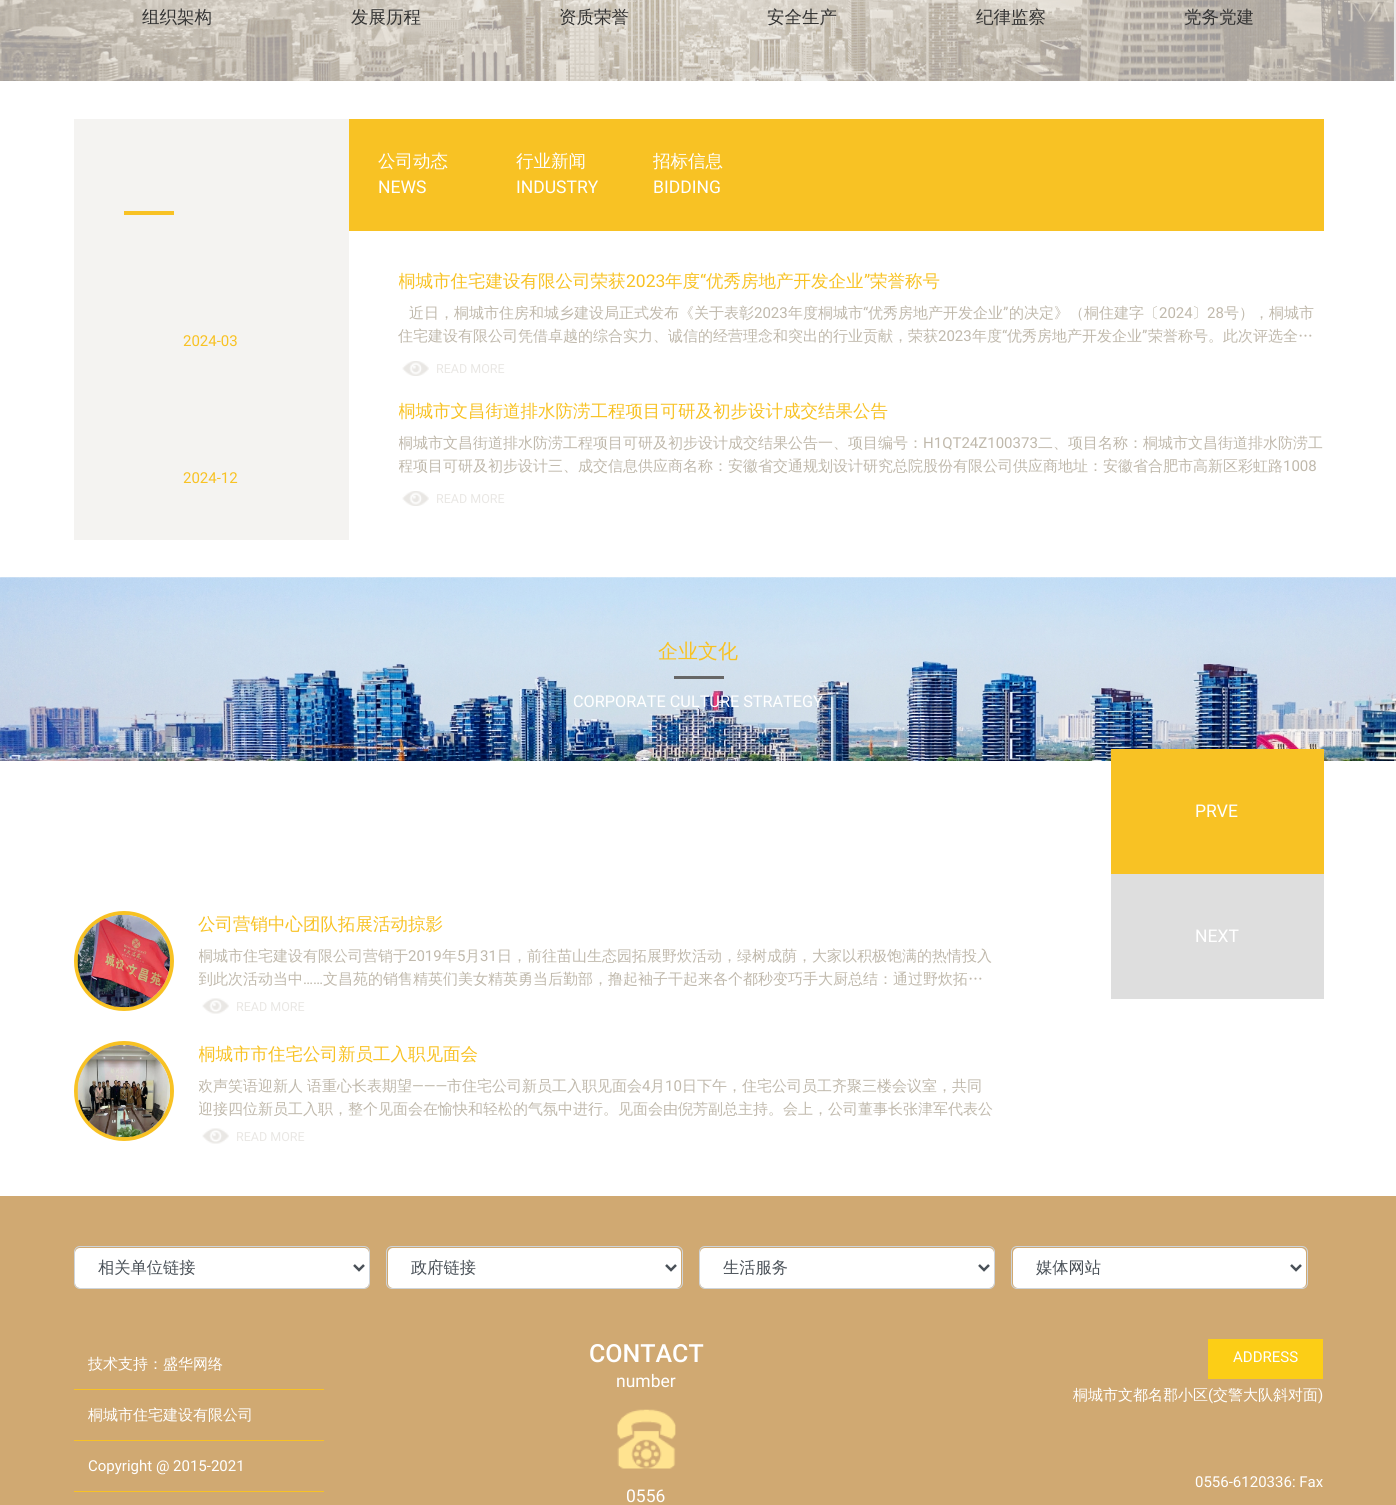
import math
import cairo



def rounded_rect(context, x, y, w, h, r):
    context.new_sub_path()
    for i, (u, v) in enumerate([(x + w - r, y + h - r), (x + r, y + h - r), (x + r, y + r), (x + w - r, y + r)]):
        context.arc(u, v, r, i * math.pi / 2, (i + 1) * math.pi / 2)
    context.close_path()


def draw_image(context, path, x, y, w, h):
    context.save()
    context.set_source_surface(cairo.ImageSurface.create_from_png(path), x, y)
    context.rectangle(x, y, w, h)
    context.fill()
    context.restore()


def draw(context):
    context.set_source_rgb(1, 1, 1)
    context.paint()
    draw_image(context, "images/1.png", 0, 0, 1396, 81)
    context.set_source_rgb(244 / 255, 243 / 255, 241 / 255)
    context.rectangle(74, 119, 275, 421)
    context.fill()
    context.set_source_rgb(248 / 255, 194 / 255, 36 / 255)
    context.rectangle(124, 211, 50, 4)
    context.fill()
    context.rectangle(349, 119, 975, 112)
    context.fill()
    draw_image(context, "images/2.png", 402, 361, 27, 15)
    draw_image(context, "images/2.png", 402, 491, 27, 15)
    draw_image(context, "images/3.png", 0, 577, 1396, 184)
    context.set_source_rgb(102 / 255, 102 / 255, 102 / 255)
    context.rectangle(674, 676, 50, 3)
    context.fill()
    context.set_source_rgb(248 / 255, 194 / 255, 36 / 255)
    context.rectangle(1111, 749, 213, 125)
    context.fill()
    context.set_source_rgb(222 / 255, 222 / 255, 222 / 255)
    context.rectangle(1111, 874, 213, 125)
    context.fill()
    context.arc(124, 961, 48, 0, 2 * math.pi)
    context.set_source_rgb(248 / 255, 194 / 255, 36 / 255)
    context.set_line_width(4)
    context.stroke()
    draw_image(context, "images/4.png", 77, 914, 93, 94)
    draw_image(context, "images/5.png", 202, 998, 27, 16)
    context.arc(124, 1091, 48, 0, 2 * math.pi)
    context.stroke()
    draw_image(context, "images/6.png", 77, 1044, 93, 94)
    draw_image(context, "images/5.png", 202, 1128, 27, 16)
    context.set_source_rgb(208 / 255, 169 / 255, 114 / 255)
    context.rectangle(0, 1196, 1396, 309)
    context.fill()
    context.set_source_rgb(1, 1, 1)
    rounded_rect(context, 75, 1248, 294, 40, 5)
    context.fill()
    rounded_rect(context, 74.5, 1246.5, 295, 42, 5.5)
    context.set_source_rgb(206 / 255, 212 / 255, 218 / 255)
    context.set_line_width(1)
    context.stroke()
    context.new_path()
    context.move_to(354, 1265)
    context.line_to(359, 1270)
    context.line_to(364, 1265)
    context.set_source_rgb(73 / 255, 80 / 255, 87 / 255)
    context.set_line_width(2.5)
    context.stroke()
    context.set_source_rgb(1, 1, 1)
    rounded_rect(context, 388, 1248, 293, 40, 5)
    context.fill()
    rounded_rect(context, 386.5, 1246.5, 296, 42, 5.5)
    context.set_source_rgb(206 / 255, 212 / 255, 218 / 255)
    context.set_line_width(1)
    context.stroke()
    context.new_path()
    context.move_to(666, 1265)
    context.line_to(671, 1270)
    context.line_to(676, 1265)
    context.set_source_rgb(73 / 255, 80 / 255, 87 / 255)
    context.set_line_width(2.5)
    context.stroke()
    context.set_source_rgb(1, 1, 1)
    rounded_rect(context, 700, 1248, 294, 40, 5)
    context.fill()
    rounded_rect(context, 699.5, 1246.5, 295, 42, 5.5)
    context.set_source_rgb(206 / 255, 212 / 255, 218 / 255)
    context.set_line_width(1)
    context.stroke()
    context.new_path()
    context.move_to(979, 1265)
    context.line_to(984, 1270)
    context.line_to(989, 1265)
    context.set_source_rgb(73 / 255, 80 / 255, 87 / 255)
    context.set_line_width(2.5)
    context.stroke()
    context.set_source_rgb(1, 1, 1)
    rounded_rect(context, 1013, 1248, 293, 40, 5)
    context.fill()
    rounded_rect(context, 1011.5, 1246.5, 296, 42, 5.5)
    context.set_source_rgb(206 / 255, 212 / 255, 218 / 255)
    context.set_line_width(1)
    context.stroke()
    context.new_path()
    context.move_to(1291, 1265)
    context.line_to(1296, 1270)
    context.line_to(1301, 1265)
    context.set_source_rgb(73 / 255, 80 / 255, 87 / 255)
    context.set_line_width(2.5)
    context.stroke()
    context.set_source_rgb(248 / 255, 194 / 255, 36 / 255)
    context.rectangle(74, 1389, 250, 1)
    context.fill()
    context.rectangle(74, 1440, 250, 1)
    context.fill()
    context.rectangle(74, 1491, 250, 1)
    context.fill()
    draw_image(context, "images/7.png", 617, 1409, 59, 60)
    context.set_source_rgb(252 / 255, 206 / 255, 22 / 255)
    context.rectangle(1208, 1339, 115, 40)
    context.fill()
    context.select_font_face("WenQuanYi Zen Hei Medium")
    context.set_font_size(17.5)
    context.set_source_rgb(51 / 255, 51 / 255, 51 / 255)
    context.move_to(142, 23)
    context.show_text("组织架构")
    context.move_to(351, 23)
    context.show_text("发展历程")
    context.move_to(559, 23)
    context.show_text("资质荣誉")
    context.move_to(767, 23)
    context.show_text("安全生产")
    context.move_to(976, 23)
    context.show_text("纪律监察")
    context.move_to(1184, 23)
    context.show_text("党务党建")
    context.select_font_face("Roboto")
    context.set_font_size(15)
    context.set_source_rgb(248 / 255, 194 / 255, 36 / 255)
    context.move_to(183, 346)
    context.show_text("2024-03")
    context.move_to(183, 483)
    context.show_text("2024-12")
    context.select_font_face("WenQuanYi Zen Hei Medium")
    context.set_font_size(17.5)
    context.set_source_rgb(1, 1, 1)
    context.move_to(378, 167)
    context.show_text("公司动态")
    context.select_font_face("Roboto")
    context.move_to(378, 193)
    context.show_text("NEWS")
    context.select_font_face("WenQuanYi Zen Hei Medium")
    context.move_to(516, 167)
    context.show_text("行业新闻")
    context.select_font_face("Roboto")
    context.move_to(516, 193)
    context.show_text("INDUSTRY")
    context.select_font_face("WenQuanYi Zen Hei Medium")
    context.move_to(653, 167)
    context.show_text("招标信息")
    context.select_font_face("Roboto")
    context.move_to(653, 193)
    context.show_text("BIDDING")
    context.save()
    context.rectangle(399, 269, 925, 112)
    context.clip()
    context.select_font_face("WenQuanYi Zen Hei Medium")
    context.set_source_rgb(248 / 255, 194 / 255, 36 / 255)
    context.move_to(398, 287)
    context.show_text("桐城市住宅建设有限公司荣获")
    context.restore()
    context.set_source_rgb(248 / 255, 194 / 255, 36 / 255)
    context.move_to(626, 287)
    context.show_text("2023")
    context.select_font_face("WenQuanYi Zen Hei Medium")
    context.move_to(665, 287)
    context.show_text("年度")
    context.select_font_face("Roboto")
    context.move_to(700, 287)
    context.show_text("“")
    context.select_font_face("WenQuanYi Zen Hei Medium")
    context.move_to(706, 287)
    context.show_text("优秀房地产开发企业")
    context.select_font_face("Roboto")
    context.move_to(864, 287)
    context.show_text("”")
    context.select_font_face("WenQuanYi Zen Hei Medium")
    context.move_to(870, 287)
    context.show_text("荣誉称号")
    context.set_font_size(15)
    context.set_source_rgb(192 / 255, 185 / 255, 172 / 255)
    context.move_to(409, 318)
    context.show_text("近日，桐城市住房和城乡建设局正式发布《关于表彰")
    context.select_font_face("Roboto")
    context.move_to(754, 318)
    context.show_text("2023")
    context.select_font_face("WenQuanYi Zen Hei Medium")
    context.move_to(788, 318)
    context.show_text("年度桐城市")
    context.select_font_face("Roboto")
    context.move_to(863, 318)
    context.show_text("“")
    context.select_font_face("WenQuanYi Zen Hei Medium")
    context.move_to(868, 318)
    context.show_text("优秀房地产开发企业")
    context.select_font_face("Roboto")
    context.move_to(1003, 318)
    context.show_text("”")
    context.select_font_face("WenQuanYi Zen Hei Medium")
    context.move_to(1009, 318)
    context.show_text("的决定》（桐住建字〔")
    context.select_font_face("Roboto")
    context.move_to(1159, 318)
    context.show_text("2024")
    context.select_font_face("WenQuanYi Zen Hei Medium")
    context.move_to(1192, 318)
    context.show_text("〕")
    context.select_font_face("Roboto")
    context.move_to(1207, 318)
    context.show_text("28")
    context.select_font_face("WenQuanYi Zen Hei Medium")
    context.move_to(1224, 318)
    context.show_text("号），桐城市")
    context.move_to(398, 341)
    context.show_text("住宅建设有限公司凭借卓越的综合实力、诚信的经营理念和突出的行业贡献，荣获")
    context.select_font_face("Roboto")
    context.move_to(938, 341)
    context.show_text("2023")
    context.select_font_face("WenQuanYi Zen Hei Medium")
    context.move_to(972, 341)
    context.show_text("年度")
    context.select_font_face("Roboto")
    context.move_to(1002, 341)
    context.show_text("“")
    context.select_font_face("WenQuanYi Zen Hei Medium")
    context.move_to(1007, 341)
    context.show_text("优秀房地产开发企业")
    context.select_font_face("Roboto")
    context.move_to(1142, 341)
    context.show_text("”")
    context.select_font_face("WenQuanYi Zen Hei Medium")
    context.move_to(1148, 341)
    context.show_text("荣誉称号。此次评选全…")
    context.select_font_face("Roboto")
    context.set_font_size(12.5)
    context.set_source_rgb(233 / 255, 231 / 255, 228 / 255)
    context.move_to(436, 373)
    context.show_text("READ MORE")
    context.save()
    context.rectangle(399, 399, 925, 112)
    context.clip()
    context.select_font_face("WenQuanYi Zen Hei Medium")
    context.set_font_size(17.5)
    context.set_source_rgb(248 / 255, 194 / 255, 36 / 255)
    context.move_to(398, 417)
    context.show_text("桐城市文昌街道排水防涝工程项目可研及初步设计成交结果公告")
    context.restore()
    context.save()
    context.rectangle(399, 433, 925, 45)
    context.clip()
    context.select_font_face("WenQuanYi Zen Hei Medium")
    context.set_font_size(15)
    context.set_source_rgb(192 / 255, 185 / 255, 172 / 255)
    context.move_to(398, 448)
    context.show_text("桐城市文昌街道排水防涝工程项目可研及初步设计成交结果公告一、项目编号：")
    context.restore()
    context.set_font_size(15)
    context.set_source_rgb(192 / 255, 185 / 255, 172 / 255)
    context.move_to(923, 448)
    context.show_text("H1QT24Z100373")
    context.select_font_face("WenQuanYi Zen Hei Medium")
    context.move_to(1038, 448)
    context.show_text("二、项目名称：桐城市文昌街道排水防涝工")
    context.save()
    context.rectangle(399, 433, 925, 45)
    context.clip()
    context.move_to(398, 471)
    context.show_text("程项目可研及初步设计三、成交信息供应商名称：安徽省交通规划设计研究总院股份有限公司供应商地址：安徽省合肥市高新区彩虹路")
    context.restore()
    context.select_font_face("Roboto")
    context.move_to(1283, 471)
    context.show_text("1008")
    context.set_font_size(12.5)
    context.set_source_rgb(233 / 255, 231 / 255, 228 / 255)
    context.move_to(436, 503)
    context.show_text("READ MORE")
    context.select_font_face("WenQuanYi Zen Hei Medium")
    context.set_font_size(20)
    context.set_source_rgb(248 / 255, 194 / 255, 36 / 255)
    context.move_to(658, 658)
    context.show_text("企业文化")
    context.select_font_face("Roboto")
    context.set_font_size(16.25)
    context.set_source_rgb(1, 1, 1)
    context.move_to(573, 707)
    context.show_text("CORPORATE CULTURE STRATEGY")
    context.set_font_size(17.5)
    context.move_to(1195, 817)
    context.show_text("PRVE")
    context.move_to(1195, 942)
    context.show_text("NEXT")
    context.select_font_face("WenQuanYi Zen Hei Medium")
    context.set_source_rgb(248 / 255, 194 / 255, 36 / 255)
    context.move_to(198, 930)
    context.show_text("公司营销中心团队拓展活动掠影")
    context.save()
    context.rectangle(199, 945, 796, 45)
    context.clip()
    context.set_font_size(15)
    context.set_source_rgb(192 / 255, 185 / 255, 172 / 255)
    context.move_to(198, 961)
    context.show_text("桐城市住宅建设有限公司营销于")
    context.restore()
    context.select_font_face("Roboto")
    context.set_font_size(15)
    context.set_source_rgb(192 / 255, 185 / 255, 172 / 255)
    context.move_to(408, 961)
    context.show_text("2019")
    context.select_font_face("WenQuanYi Zen Hei Medium")
    context.move_to(442, 961)
    context.show_text("年")
    context.select_font_face("Roboto")
    context.move_to(457, 961)
    context.show_text("5")
    context.select_font_face("WenQuanYi Zen Hei Medium")
    context.move_to(465, 961)
    context.show_text("月")
    context.select_font_face("Roboto")
    context.move_to(480, 961)
    context.show_text("31")
    context.select_font_face("WenQuanYi Zen Hei Medium")
    context.move_to(497, 961)
    context.show_text("日，前往苗山生态园拓展野炊活动，绿树成荫，大家以积极饱满的热情投入")
    context.save()
    context.rectangle(199, 945, 796, 45)
    context.clip()
    context.move_to(198, 984)
    context.show_text("到此次活动当中")
    context.restore()
    context.select_font_face("Roboto")
    context.move_to(303, 984)
    context.show_text("……")
    context.select_font_face("WenQuanYi Zen Hei Medium")
    context.move_to(323, 984)
    context.show_text("文昌苑的销售精英们美女精英勇当后勤部，撸起袖子干起来各个都秒变巧手大厨总结：通过野炊拓…")
    context.select_font_face("Roboto")
    context.set_font_size(12.5)
    context.set_source_rgb(233 / 255, 231 / 255, 228 / 255)
    context.move_to(236, 1011)
    context.show_text("READ MORE")
    context.save()
    context.rectangle(199, 1041, 796, 105)
    context.clip()
    context.select_font_face("WenQuanYi Zen Hei Medium")
    context.set_font_size(17.5)
    context.set_source_rgb(248 / 255, 194 / 255, 36 / 255)
    context.move_to(198, 1060)
    context.show_text("桐城市市住宅公司新员工入职见面会")
    context.restore()
    context.save()
    context.rectangle(199, 1075, 796, 45)
    context.clip()
    context.select_font_face("WenQuanYi Zen Hei Medium")
    context.set_font_size(15)
    context.set_source_rgb(192 / 255, 185 / 255, 172 / 255)
    context.move_to(198, 1091)
    context.show_text("欢声笑语迎新人")
    context.restore()
    context.select_font_face("WenQuanYi Zen Hei Medium")
    context.set_font_size(15)
    context.set_source_rgb(192 / 255, 185 / 255, 172 / 255)
    context.move_to(307, 1091)
    context.show_text("语重心长表期望")
    context.select_font_face("Roboto")
    context.move_to(412, 1091)
    context.show_text("———")
    context.select_font_face("WenQuanYi Zen Hei Medium")
    context.move_to(447, 1091)
    context.show_text("市住宅公司新员工入职见面会")
    context.select_font_face("Roboto")
    context.move_to(642, 1091)
    context.show_text("4")
    context.select_font_face("WenQuanYi Zen Hei Medium")
    context.move_to(650, 1091)
    context.show_text("月")
    context.select_font_face("Roboto")
    context.move_to(665, 1091)
    context.show_text("10")
    context.select_font_face("WenQuanYi Zen Hei Medium")
    context.move_to(682, 1091)
    context.show_text("日下午，住宅公司员工齐聚三楼会议室，共同")
    context.save()
    context.rectangle(199, 1075, 796, 45)
    context.clip()
    context.move_to(198, 1114)
    context.show_text("迎接四位新员工入职，整个见面会在愉快和轻松的气氛中进行。见面会由倪芳副总主持。会上，公司董事长张津军代表公")
    context.restore()
    context.select_font_face("Roboto")
    context.set_font_size(12.5)
    context.set_source_rgb(233 / 255, 231 / 255, 228 / 255)
    context.move_to(236, 1141)
    context.show_text("READ MORE")
    context.select_font_face("WenQuanYi Zen Hei Medium")
    context.set_font_size(16.25)
    context.set_source_rgb(73 / 255, 80 / 255, 87 / 255)
    context.move_to(98, 1273)
    context.show_text("相关单位链接")
    context.move_to(411, 1273)
    context.show_text("政府链接")
    context.move_to(723, 1273)
    context.show_text("生活服务")
    context.move_to(1036, 1273)
    context.show_text("媒体网站")
    context.set_font_size(15)
    context.set_source_rgb(1, 1, 1)
    context.move_to(88, 1369)
    context.show_text("技术支持：盛华网络")
    context.move_to(88, 1420)
    context.show_text("桐城市住宅建设有限公司")
    context.select_font_face("Roboto")
    context.move_to(88, 1471)
    context.show_text("Copyright @ 2015-2021")
    context.select_font_face("Roboto Medium")
    context.set_font_size(25)
    context.move_to(589, 1362)
    context.show_text("CONTACT")
    context.select_font_face("Roboto")
    context.set_font_size(17.5)
    context.move_to(616, 1387)
    context.show_text("number")
    context.move_to(626, 1502)
    context.show_text("0556")
    context.set_font_size(15)
    context.move_to(1233, 1362)
    context.show_text("ADDRESS")
    context.select_font_face("WenQuanYi Zen Hei Medium")
    context.move_to(1073, 1400)
    context.show_text("桐城市文都名郡小区")
    context.select_font_face("Roboto")
    context.move_to(1208, 1400)
    context.show_text("(")
    context.select_font_face("WenQuanYi Zen Hei Medium")
    context.move_to(1213, 1400)
    context.show_text("交警大队斜对面")
    context.select_font_face("Roboto")
    context.move_to(1318, 1400)
    context.show_text(")")
    context.move_to(1195, 1487)
    context.show_text("0556-6120336: Fax")


surface = cairo.ImageSurface(cairo.Format.RGB24, 1396, 1505)
context = cairo.Context(surface)
options = cairo.FontOptions()
options.set_hint_metrics(cairo.HintMetrics.OFF)
options.set_hint_style(cairo.HintStyle.NONE)
context.set_font_options(options)
context.set_miter_limit(4)
draw(context)
surface.write_to_png("out.png")
